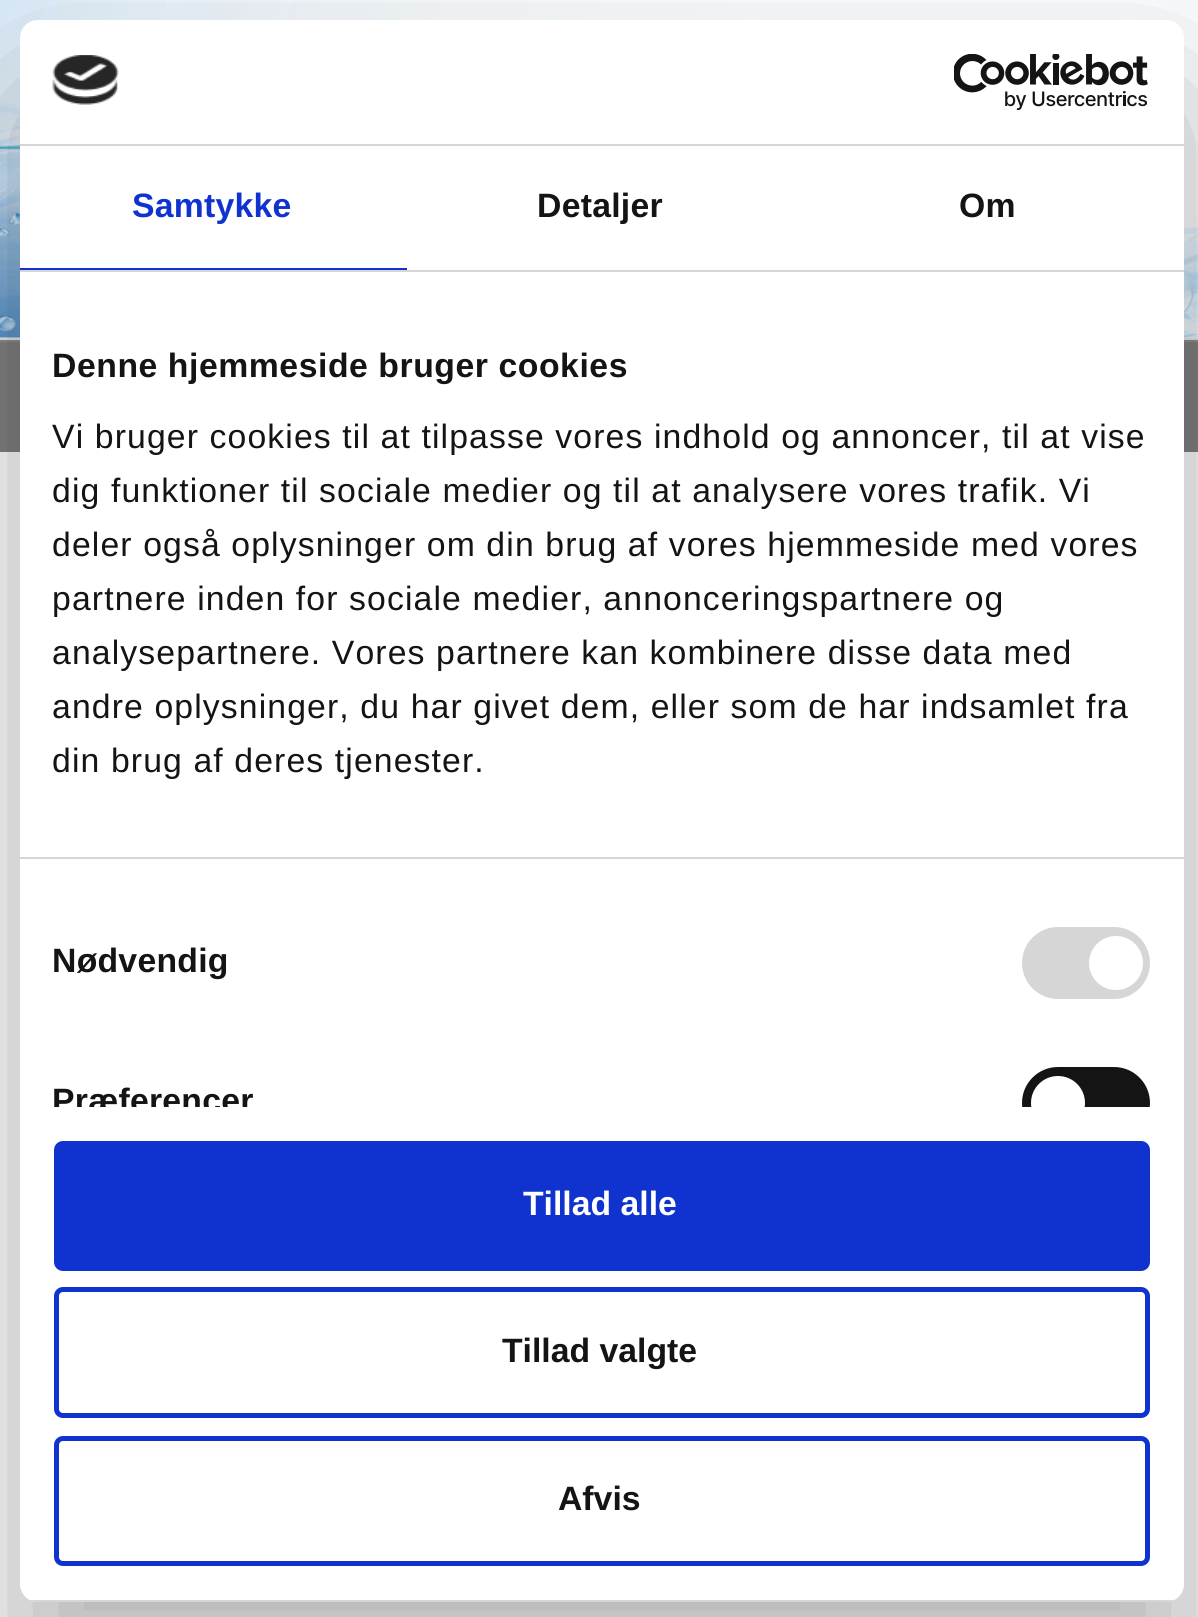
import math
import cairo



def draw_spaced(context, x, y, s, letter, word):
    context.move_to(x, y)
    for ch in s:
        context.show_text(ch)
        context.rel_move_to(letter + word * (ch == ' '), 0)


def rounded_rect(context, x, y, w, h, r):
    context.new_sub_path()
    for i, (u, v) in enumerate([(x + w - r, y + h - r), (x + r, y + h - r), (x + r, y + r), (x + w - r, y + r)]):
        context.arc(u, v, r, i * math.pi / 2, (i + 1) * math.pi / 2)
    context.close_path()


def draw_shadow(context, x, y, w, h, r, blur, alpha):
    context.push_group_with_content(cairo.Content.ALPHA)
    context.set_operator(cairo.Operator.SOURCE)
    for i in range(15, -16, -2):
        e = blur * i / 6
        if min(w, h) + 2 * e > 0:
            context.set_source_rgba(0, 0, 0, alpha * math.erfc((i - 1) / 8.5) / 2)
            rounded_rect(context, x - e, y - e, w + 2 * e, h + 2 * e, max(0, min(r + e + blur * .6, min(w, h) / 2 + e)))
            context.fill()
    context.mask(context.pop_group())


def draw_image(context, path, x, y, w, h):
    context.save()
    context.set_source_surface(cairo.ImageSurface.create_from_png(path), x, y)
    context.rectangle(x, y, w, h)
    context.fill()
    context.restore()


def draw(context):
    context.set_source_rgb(1, 1, 1)
    context.paint()
    draw_image(context, "images/1.png", 0, 0, 1198, 338)
    context.set_source_rgb(128 / 255, 128 / 255, 128 / 255)
    context.rectangle(0, 342, 1198, 110)
    context.fill()
    context.set_source_rgb(141 / 255, 141 / 255, 141 / 255)
    context.rectangle(0, 340, 1198, 2)
    context.fill()
    context.set_source_rgb(231 / 255, 231 / 255, 231 / 255)
    context.rectangle(0, 338, 1198, 2)
    context.fill()
    context.set_source_rgb(252 / 255, 252 / 255, 252 / 255)
    context.rectangle(0, 452, 1198, 1165)
    context.fill()
    context.set_source_rgb(0, 0, 0)
    draw_shadow(context, 20, 92, 1164, 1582, 18, 76.5, 0.3)
    context.set_source_rgb(1, 1, 1)
    rounded_rect(context, 20, 20, 1164, 1582, 18)
    context.fill()
    context.set_source_rgb(214 / 255, 214 / 255, 214 / 255)
    context.rectangle(20, 144, 1164, 2)
    context.fill()
    draw_image(context, "images/2.png", 52, 55, 67, 50)
    draw_image(context, "images/3.png", 954, 54, 194, 56)
    context.rectangle(20, 270, 1164, 2)
    context.fill()
    context.set_source_rgb(16 / 255, 50 / 255, 207 / 255)
    context.rectangle(20, 268, 387, 2)
    context.fill()
    context.set_source_rgb(214 / 255, 214 / 255, 214 / 255)
    context.rectangle(20, 857, 1164, 2)
    context.fill()
    rounded_rect(context, 1022, 927, 128, 72, 36)
    context.fill()
    context.set_source_rgb(1, 1, 1)
    context.arc(1116, 963, 27, 0, 2 * math.pi)
    context.fill()
    context.save()
    context.rectangle(20, 272, 1164, 835)
    context.clip()
    context.set_source_rgb(20 / 255, 20 / 255, 20 / 255)
    rounded_rect(context, 1022, 1067, 128, 72, 36)
    context.fill()
    context.set_source_rgb(1, 1, 1)
    context.arc(1058, 1103, 27, 0, 2 * math.pi)
    context.fill()
    context.restore()
    context.save()
    rounded_rect(context, 20, 20, 1164, 1582, 18)
    context.clip()
    context.set_source_rgb(214 / 255, 214 / 255, 214 / 255)
    context.rectangle(30, 1600, 1144, 2)
    context.fill()
    context.restore()
    context.set_source_rgb(16 / 255, 50 / 255, 207 / 255)
    rounded_rect(context, 56.5, 1143.5, 1091, 125, 6.5)
    context.fill_preserve()
    context.set_line_width(5)
    context.stroke()
    rounded_rect(context, 56.5, 1289.5, 1091, 126, 6.5)
    context.stroke()
    rounded_rect(context, 56.5, 1438.5, 1091, 125, 6.5)
    context.stroke()
    context.select_font_face("Liberation Sans", cairo.FontSlant.NORMAL, cairo.FontWeight.BOLD)
    context.set_font_size(33.75)
    draw_spaced(context, 132, 217, "Samtykke", 0.25, 0)
    context.set_source_rgb(20 / 255, 20 / 255, 20 / 255)
    draw_spaced(context, 537, 217, "Detaljer", 0.25, 0)
    draw_spaced(context, 959, 217, "Om", 0.25, 0)
    draw_spaced(context, 52, 377, "Denne hjemmeside bruger cookies", 0.55, 0)
    context.select_font_face("Liberation Sans")
    draw_spaced(context, 52, 448, "Vi bruger cookies til at tilpasse vores indhold og annoncer, til at vise", 1.12, 0)
    draw_spaced(context, 52, 502, "dig funktioner til sociale medier og til at analysere vores trafik. Vi", 1.12, 0)
    draw_spaced(context, 52, 556, "deler også oplysninger om din brug af vores hjemmeside med vores", 1.12, 0)
    draw_spaced(context, 52, 610, "partnere inden for sociale medier, annonceringspartnere og", 1.12, 0)
    draw_spaced(context, 52, 664, "analysepartnere. Vores partnere kan kombinere disse data med", 1.12, 0)
    draw_spaced(context, 52, 718, "andre oplysninger, du har givet dem, eller som de har indsamlet fra", 1.12, 0)
    draw_spaced(context, 52, 772, "din brug af deres tjenester.", 1.12, 0)
    context.select_font_face("Liberation Sans", cairo.FontSlant.NORMAL, cairo.FontWeight.BOLD)
    draw_spaced(context, 52, 972, "Nødvendig", 0.25, 0)
    context.save()
    context.rectangle(20, 272, 1164, 835)
    context.clip()
    draw_spaced(context, 52, 1112, "Præferencer", 0.25, 0)
    context.restore()
    context.set_source_rgb(1, 1, 1)
    context.move_to(523, 1215)
    context.show_text("Tillad alle")
    context.set_source_rgb(20 / 255, 20 / 255, 20 / 255)
    context.move_to(502, 1362)
    context.show_text("Tillad valgte")
    context.move_to(558, 1510)
    context.show_text("Afvis")


surface = cairo.ImageSurface(cairo.Format.RGB24, 1198, 1617)
context = cairo.Context(surface)
options = cairo.FontOptions()
options.set_hint_metrics(cairo.HintMetrics.OFF)
options.set_hint_style(cairo.HintStyle.NONE)
context.set_font_options(options)
context.set_miter_limit(4)
draw(context)
surface.write_to_png("out.png")
